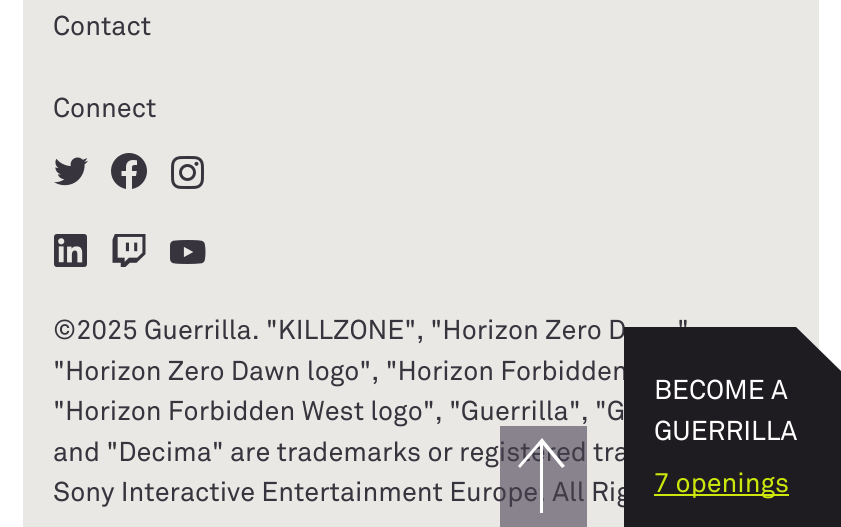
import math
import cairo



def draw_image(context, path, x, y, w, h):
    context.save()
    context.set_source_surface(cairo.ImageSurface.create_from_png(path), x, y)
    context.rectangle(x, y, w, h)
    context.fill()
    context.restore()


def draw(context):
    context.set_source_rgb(1, 1, 1)
    context.paint()
    context.set_source_rgb(234 / 255, 232 / 255, 229 / 255)
    context.rectangle(23, 0, 796, 527)
    context.fill()
    draw_image(context, "images/1.png", 54, 157, 34, 29)
    draw_image(context, "images/2.png", 111, 153, 36, 36)
    draw_image(context, "images/3.png", 171, 156, 33, 33)
    draw_image(context, "images/4.png", 54, 234, 33, 33)
    draw_image(context, "images/5.png", 112, 234, 34, 33)
    draw_image(context, "images/6.png", 170, 240, 36, 24)
    context.select_font_face("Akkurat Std")
    context.set_font_size(27)
    context.set_source_rgb(55 / 255, 52 / 255, 61 / 255)
    context.move_to(53, 35)
    context.show_text("Contact")
    context.move_to(53, 117)
    context.show_text("Connect")
    context.move_to(53, 339)
    context.show_text("©2025 Guerrilla. \"KILLZONE\", \"Horizon Zero D")
    context.move_to(677, 339)
    context.show_text("\"")
    context.move_to(53, 380)
    context.show_text("\"Horizon Zero Dawn logo\", \"Horizon Forbidden")
    context.move_to(53, 420)
    context.show_text("\"Horizon Forbidden West logo\", \"Guerrilla\", \"G")
    context.move_to(53, 461)
    context.show_text("and \"Decima\" are trademarks or registered tra")
    context.move_to(53, 501)
    context.show_text("Sony Interactive Entertainment Europe. All Rig")
    context.set_source_rgb(30 / 255, 28 / 255, 33 / 255)
    context.new_path()
    context.move_to(624, 327)
    context.line_to(624, 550)
    context.line_to(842, 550)
    context.line_to(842, 372)
    context.line_to(796, 327)
    context.close_path()
    context.fill()
    context.set_source_rgb(1, 1, 1)
    context.move_to(654, 399)
    context.show_text("BECOME A")
    context.move_to(654, 440)
    context.show_text("GUERRILLA")
    context.set_source_rgb(203 / 255, 231 / 255, 11 / 255)
    context.rectangle(654, 494, 135, 2)
    context.fill()
    context.move_to(654, 492)
    context.show_text("7 openings")
    context.set_source_rgba(70 / 255, 64 / 255, 81 / 255, 0.6)
    context.rectangle(500, 426, 87, 101)
    context.fill()
    context.set_source_rgb(1, 1, 1)
    context.set_fill_rule(cairo.FillRule.EVEN_ODD)
    context.new_path()
    context.move_to(540, 445)
    context.line_to(520, 468)
    context.line_to(518, 466)
    context.line_to(542, 438)
    context.line_to(565, 466)
    context.line_to(562, 468)
    context.line_to(543, 445)
    context.line_to(543, 513)
    context.line_to(540, 513)
    context.close_path()
    context.fill()


surface = cairo.ImageSurface(cairo.Format.RGB24, 841, 527)
context = cairo.Context(surface)
options = cairo.FontOptions()
options.set_hint_metrics(cairo.HintMetrics.OFF)
options.set_hint_style(cairo.HintStyle.NONE)
context.set_font_options(options)
context.set_miter_limit(4)
draw(context)
surface.write_to_png("out.png")
